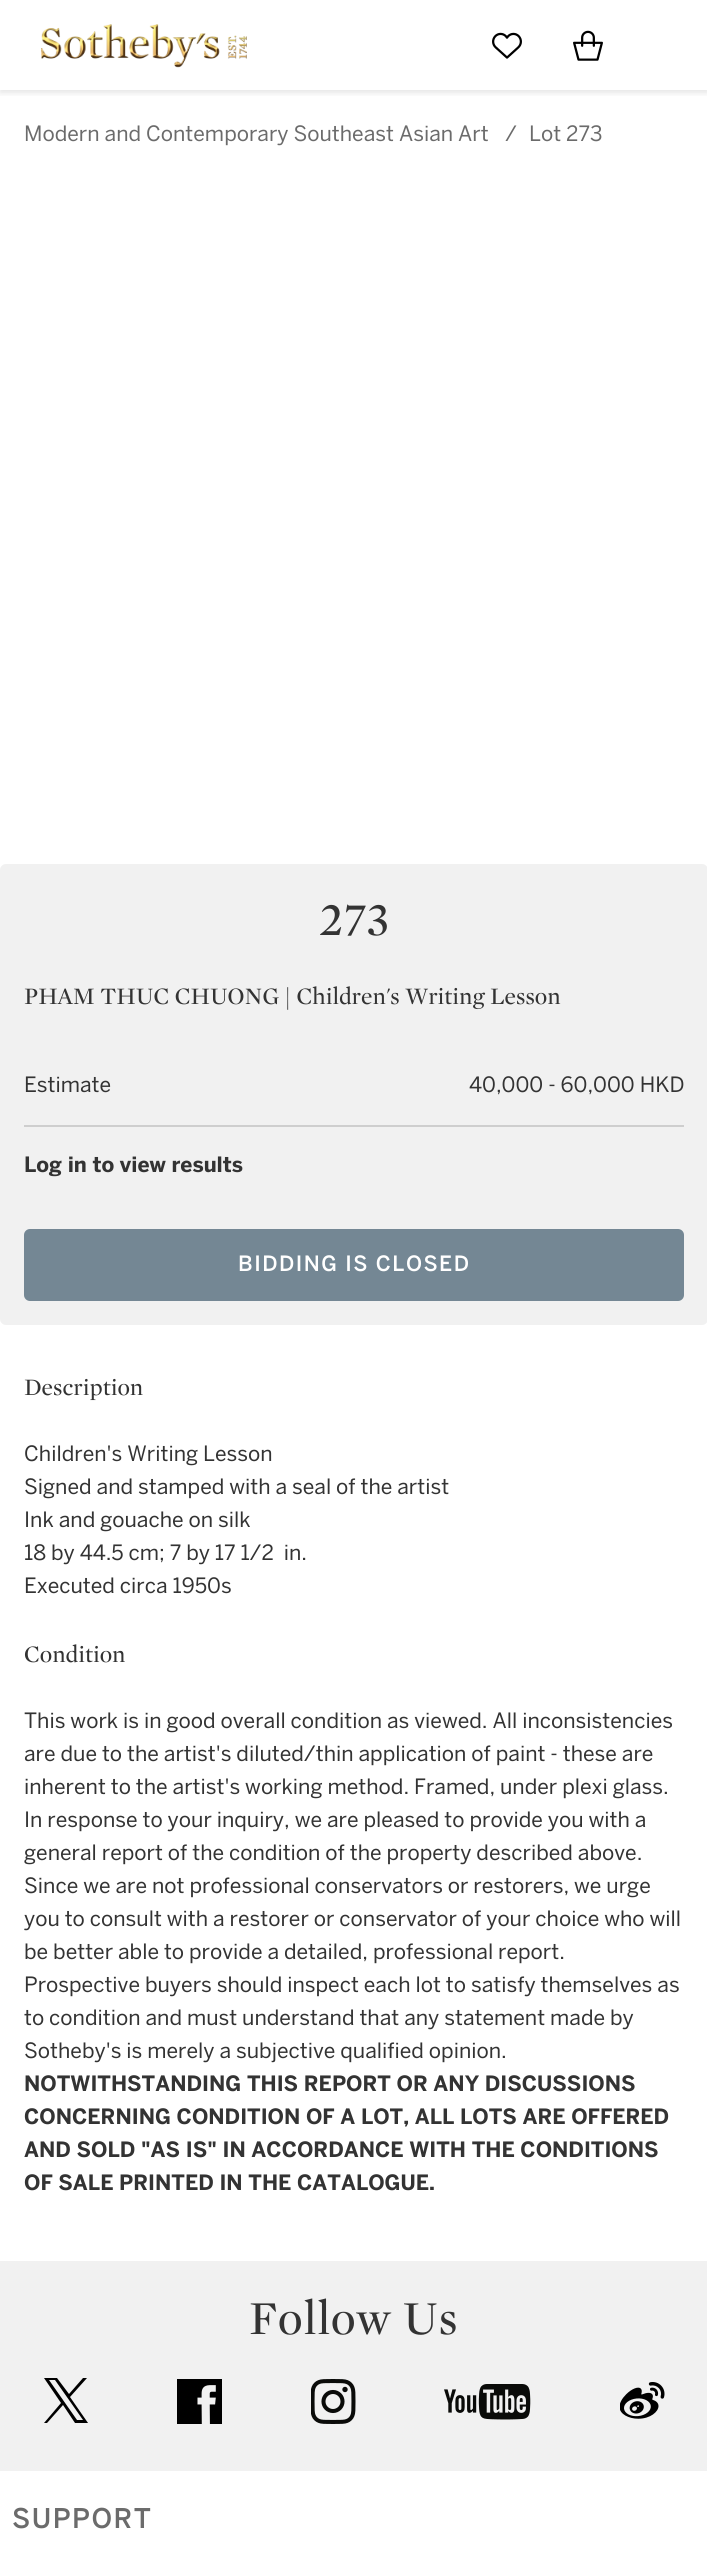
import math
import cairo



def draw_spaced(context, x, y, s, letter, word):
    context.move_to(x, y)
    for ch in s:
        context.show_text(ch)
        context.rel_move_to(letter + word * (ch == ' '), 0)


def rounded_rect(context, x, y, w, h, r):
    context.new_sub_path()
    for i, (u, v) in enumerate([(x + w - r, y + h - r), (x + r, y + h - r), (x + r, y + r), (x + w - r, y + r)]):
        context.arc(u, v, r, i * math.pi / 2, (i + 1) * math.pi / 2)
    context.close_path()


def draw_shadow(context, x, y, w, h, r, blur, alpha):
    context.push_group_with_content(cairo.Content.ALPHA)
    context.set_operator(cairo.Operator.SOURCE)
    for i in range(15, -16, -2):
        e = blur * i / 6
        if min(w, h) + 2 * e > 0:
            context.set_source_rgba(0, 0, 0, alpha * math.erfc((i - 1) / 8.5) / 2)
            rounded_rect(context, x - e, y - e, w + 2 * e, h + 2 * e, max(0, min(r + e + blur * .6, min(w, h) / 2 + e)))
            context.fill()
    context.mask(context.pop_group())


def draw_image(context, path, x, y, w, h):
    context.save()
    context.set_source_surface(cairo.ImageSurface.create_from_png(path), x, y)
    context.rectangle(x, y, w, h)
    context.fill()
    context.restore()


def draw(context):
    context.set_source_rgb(1, 1, 1)
    context.paint()
    context.save()
    context.rectangle(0, 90, 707, 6)
    context.clip()
    context.set_source_rgb(0, 0, 0)
    draw_shadow(context, 0, 3, 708, 90, 0, 3, 0.1)
    context.restore()
    draw_image(context, "images/1.png", 41, 24, 206, 44)
    draw_image(context, "images/2.png", 492, 32, 30, 27)
    draw_image(context, "images/3.png", 573, 30, 30, 31)
    context.set_source_rgb(241 / 255, 241 / 255, 241 / 255)
    rounded_rect(context, 0, 864, 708, 461, 6)
    context.fill()
    context.set_source_rgb(206 / 255, 206 / 255, 206 / 255)
    context.rectangle(24, 1125, 660, 2)
    context.fill()
    context.set_source_rgb(116 / 255, 135 / 255, 148 / 255)
    rounded_rect(context, 25, 1230, 658, 70, 5)
    context.fill_preserve()
    context.stroke()
    context.set_source_rgb(241 / 255, 241 / 255, 241 / 255)
    context.rectangle(0, 2261, 707, 210)
    context.fill()
    context.set_source_rgb(0, 0, 0)
    context.new_path()
    context.move_to(70, 2397)
    context.line_to(87, 2378)
    context.line_to(83, 2378)
    context.line_to(69, 2394)
    context.line_to(57, 2378)
    context.line_to(44, 2378)
    context.line_to(61, 2403)
    context.line_to(44, 2423)
    context.line_to(47, 2423)
    context.line_to(63, 2405)
    context.line_to(75, 2423)
    context.line_to(88, 2423)
    context.move_to(49, 2380)
    context.line_to(55, 2380)
    context.line_to(83, 2420)
    context.line_to(77, 2420)
    context.fill()
    draw_image(context, "images/4.png", 177, 2379, 45, 45)
    draw_image(context, "images/5.png", 311, 2379, 45, 45)
    draw_image(context, "images/6.png", 444, 2384, 87, 36)
    draw_image(context, "images/7.png", 620, 2382, 45, 37)
    context.select_font_face("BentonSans")
    context.set_font_size(21)
    context.set_source_rgb(107 / 255, 107 / 255, 107 / 255)
    context.move_to(24, 141)
    context.show_text("Modern and Contemporary Southeast Asian Art")
    context.move_to(505, 141)
    context.show_text("/")
    context.move_to(529, 141)
    context.show_text("Lot 273")
    context.select_font_face("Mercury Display")
    context.set_font_size(48)
    context.set_source_rgb(51 / 255, 51 / 255, 51 / 255)
    context.move_to(319, 935)
    context.show_text("273")
    context.set_font_size(24)
    context.move_to(24, 1004)
    context.show_text("PHAM THUC CHUONG | Children's Writing Lesson")
    context.select_font_face("BentonSans")
    context.set_font_size(21)
    context.move_to(24, 1092)
    context.show_text("Estimate")
    context.move_to(469, 1092)
    context.show_text("40,000 - 60,000 HKD")
    context.select_font_face("BentonSans", cairo.FontSlant.NORMAL, cairo.FontWeight.BOLD)
    context.move_to(24, 1172)
    context.show_text("Log in to view results")
    context.select_font_face("BentonSans Medium")
    context.set_source_rgb(1, 1, 1)
    draw_spaced(context, 238, 1271, "BIDDING IS CLOSED", 1.5, 0)
    context.select_font_face("Mercury Display")
    context.set_font_size(24)
    context.set_source_rgb(51 / 255, 51 / 255, 51 / 255)
    context.move_to(24, 1395)
    context.show_text("Description")
    context.select_font_face("BentonSans")
    context.set_font_size(21)
    context.move_to(24, 1461)
    context.show_text("Children's Writing Lesson")
    context.move_to(24, 1494)
    context.show_text("Signed and stamped with a seal of the artist")
    context.move_to(24, 1527)
    context.show_text("Ink and gouache on silk")
    context.move_to(24, 1560)
    context.show_text("18 by 44.5 cm; 7 by 17 1/2  in.")
    context.move_to(24, 1593)
    context.show_text("Executed circa 1950s")
    context.select_font_face("Mercury Display")
    context.set_font_size(24)
    context.move_to(24, 1662)
    context.show_text("Condition")
    context.select_font_face("BentonSans")
    context.set_font_size(21)
    context.move_to(24, 1728)
    context.show_text("This work is in good overall condition as viewed. All inconsistencies")
    context.move_to(24, 1761)
    context.show_text("are due to the artist's diluted/thin application of paint - these are")
    context.move_to(24, 1794)
    context.show_text("inherent to the artist's working method. Framed, under plexi glass.")
    context.move_to(24, 1827)
    context.show_text("In response to your inquiry, we are pleased to provide you with a")
    context.move_to(24, 1860)
    context.show_text("general report of the condition of the property described above.")
    context.move_to(24, 1893)
    context.show_text("Since we are not professional conservators or restorers, we urge")
    context.move_to(24, 1926)
    context.show_text("you to consult with a restorer or conservator of your choice who will")
    context.move_to(24, 1959)
    context.show_text("be better able to provide a detailed, professional report.")
    context.move_to(24, 1992)
    context.show_text("Prospective buyers should inspect each lot to satisfy themselves as")
    context.move_to(24, 2025)
    context.show_text("to condition and must understand that any statement made by")
    context.move_to(24, 2058)
    context.show_text("Sotheby's is merely a subjective qualified opinion.")
    context.select_font_face("BentonSans", cairo.FontSlant.NORMAL, cairo.FontWeight.BOLD)
    context.move_to(24, 2091)
    context.show_text("NOTWITHSTANDING THIS REPORT OR ANY DISCUSSIONS")
    context.move_to(24, 2124)
    context.show_text("CONCERNING CONDITION OF A LOT, ALL LOTS ARE OFFERED")
    context.move_to(24, 2157)
    context.show_text("AND SOLD \"AS IS\" IN ACCORDANCE WITH THE CONDITIONS")
    context.move_to(24, 2190)
    context.show_text("OF SALE PRINTED IN THE CATALOGUE.")
    context.select_font_face("Mercury Display")
    context.set_font_size(48)
    draw_spaced(context, 249, 2334, "Follow Us", 0.75, 0)
    context.select_font_face("BentonSans Medium")
    context.set_font_size(27)
    context.set_source_rgb(107 / 255, 107 / 255, 107 / 255)
    draw_spaced(context, 12, 2528, "SUPPORT", 1.5, 0)


surface = cairo.ImageSurface(cairo.Format.RGB24, 707, 2562)
context = cairo.Context(surface)
options = cairo.FontOptions()
options.set_hint_metrics(cairo.HintMetrics.OFF)
options.set_hint_style(cairo.HintStyle.NONE)
context.set_font_options(options)
context.set_miter_limit(4)
draw(context)
surface.write_to_png("out.png")
